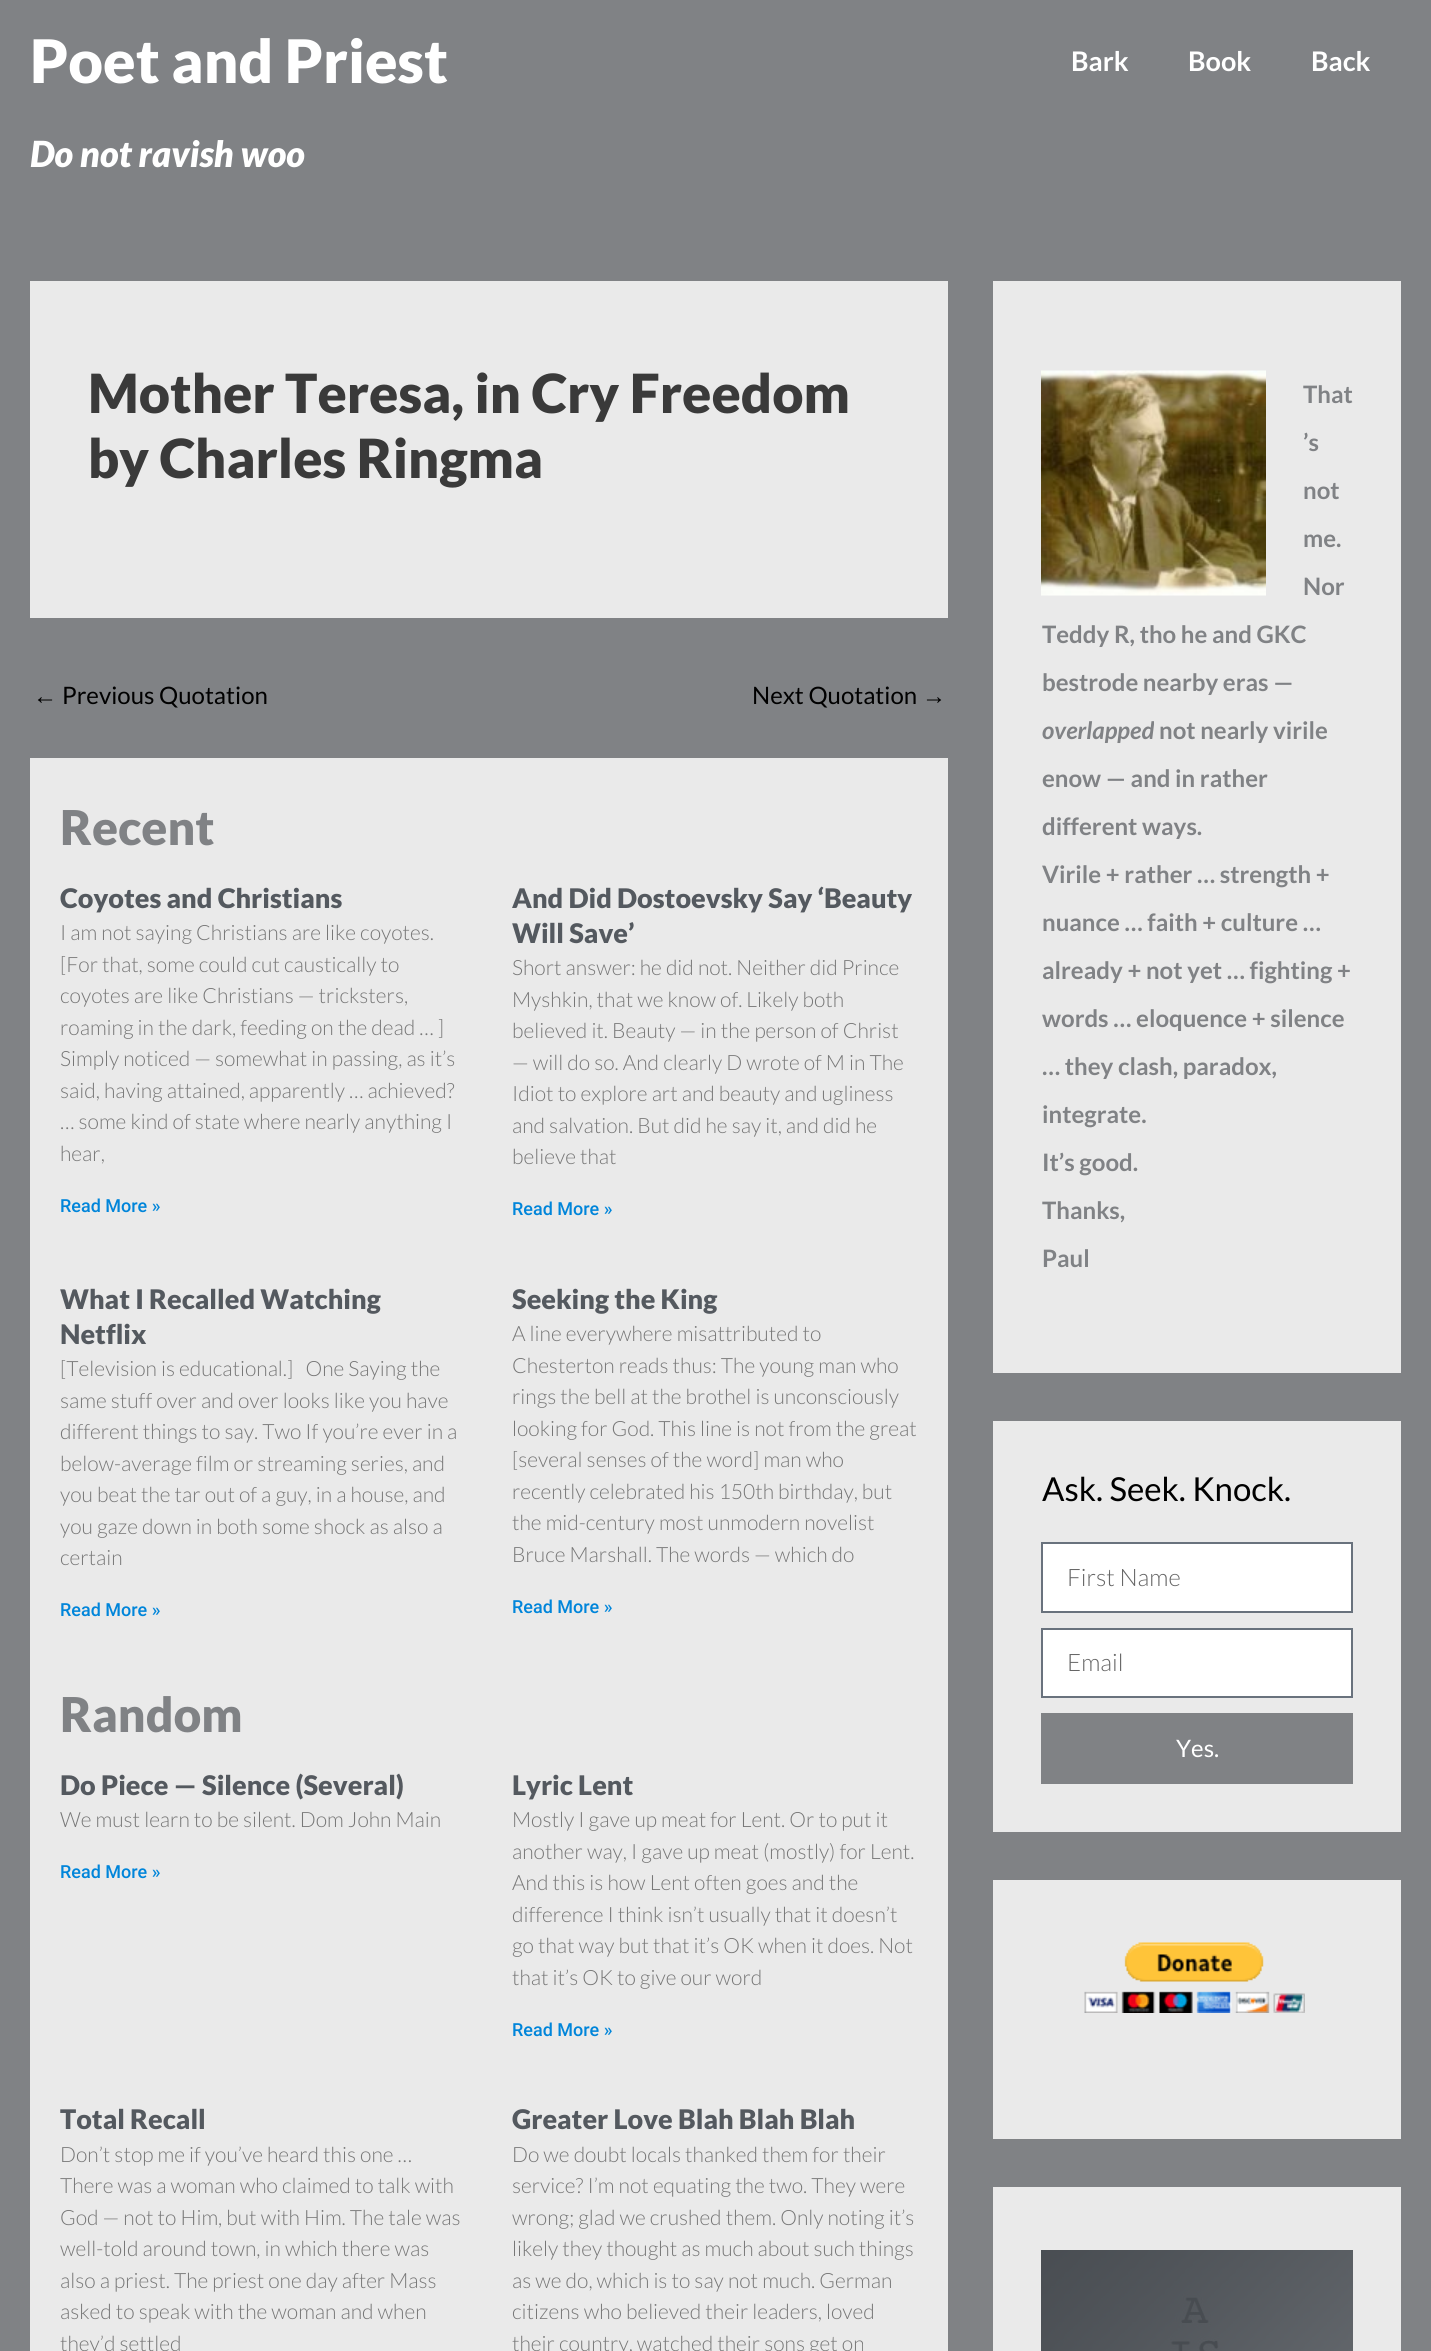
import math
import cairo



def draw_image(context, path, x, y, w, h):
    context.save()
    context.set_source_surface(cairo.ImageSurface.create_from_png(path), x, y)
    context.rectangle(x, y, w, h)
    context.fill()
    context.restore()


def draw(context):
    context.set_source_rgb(128 / 255, 130 / 255, 133 / 255)
    context.paint()
    context.set_source_rgb(234 / 255, 234 / 255, 234 / 255)
    context.rectangle(30, 281, 918, 337)
    context.fill()
    context.rectangle(30, 758, 918, 1593)
    context.fill()
    context.rectangle(993, 281, 408, 1092)
    context.fill()
    draw_image(context, "images/1.png", 1041, 370, 225, 226)
    context.rectangle(993, 1421, 408, 411)
    context.fill()
    context.set_source_rgb(1, 1, 1)
    context.rectangle(1042, 1543, 310, 69)
    context.fill_preserve()
    context.set_source_rgb(105 / 255, 114 / 255, 125 / 255)
    context.stroke()
    context.set_source_rgb(1, 1, 1)
    context.rectangle(1042, 1629, 310, 68)
    context.fill_preserve()
    context.set_source_rgb(105 / 255, 114 / 255, 125 / 255)
    context.stroke()
    context.set_source_rgb(128 / 255, 130 / 255, 133 / 255)
    context.rectangle(1041, 1713, 312, 71)
    context.fill()
    context.set_source_rgb(234 / 255, 234 / 255, 234 / 255)
    context.rectangle(993, 1880, 408, 259)
    context.fill()
    draw_image(context, "images/2.png", 1084, 1942, 221, 71)
    context.rectangle(993, 2187, 408, 164)
    context.fill()
    draw_image(context, "images/3.png", 1041, 2250, 312, 101)
    context.select_font_face("Lato Black")
    context.set_font_size(60)
    context.set_source_rgb(1, 1, 1)
    context.move_to(30, 83)
    context.show_text("Poet and Priest")
    context.select_font_face("Lato", cairo.FontSlant.NORMAL, cairo.FontWeight.BOLD)
    context.set_font_size(27)
    context.move_to(1071, 71)
    context.show_text("Bark")
    context.move_to(1188, 71)
    context.show_text("Book")
    context.move_to(1311, 71)
    context.show_text("Back")
    context.select_font_face("Lato Black", cairo.FontSlant.ITALIC)
    context.set_font_size(36)
    context.move_to(30, 167)
    context.show_text("Do not ravish woo")
    context.select_font_face("Lato Black")
    context.set_font_size(54)
    context.set_source_rgb(58 / 255, 58 / 255, 58 / 255)
    context.move_to(88, 413)
    context.show_text("Mother Teresa, in Cry Freedom")
    context.move_to(88, 478)
    context.show_text("by Charles Ringma")
    context.select_font_face("Liberation Sans")
    context.set_font_size(24)
    context.set_source_rgb(0, 0, 0)
    context.move_to(33, 704)
    context.show_text("←")
    context.select_font_face("Lato")
    context.move_to(62, 704)
    context.show_text("Previous Quotation")
    context.move_to(752, 704)
    context.show_text("Next Quotation")
    context.select_font_face("Liberation Sans")
    context.move_to(922, 704)
    context.show_text("→")
    context.select_font_face("Lato Black")
    context.set_font_size(48)
    context.set_source_rgb(128 / 255, 130 / 255, 133 / 255)
    context.move_to(60, 845)
    context.show_text("Recent")
    context.set_font_size(27)
    context.set_source_rgb(84 / 255, 89 / 255, 95 / 255)
    context.move_to(60, 908)
    context.show_text("Coyotes and Christians")
    context.select_font_face("Lato Light")
    context.set_font_size(21)
    context.set_source_rgb(119 / 255, 119 / 255, 119 / 255)
    context.move_to(60, 940)
    context.show_text("I am not saying Christians are like coyotes.")
    context.move_to(60, 972)
    context.show_text("[For that, some could cut caustically to")
    context.move_to(60, 1003)
    context.show_text("coyotes are like Christians — tricksters,")
    context.move_to(60, 1035)
    context.show_text("roaming in the dark, feeding on the dead … ]")
    context.move_to(60, 1066)
    context.show_text("Simply noticed — somewhat in passing, as it’s")
    context.move_to(60, 1098)
    context.show_text("said, having attained, apparently … achieved?")
    context.move_to(60, 1129)
    context.show_text("… some kind of state where nearly anything I")
    context.move_to(60, 1161)
    context.show_text("hear,")
    context.select_font_face("Roboto Medium")
    context.set_font_size(18)
    context.set_source_rgb(0, 133 / 255, 218 / 255)
    context.move_to(60, 1212)
    context.show_text("Read More »")
    context.select_font_face("Lato Black")
    context.set_font_size(27)
    context.set_source_rgb(84 / 255, 89 / 255, 95 / 255)
    context.move_to(512, 908)
    context.show_text("And Did Dostoevsky Say ‘Beauty")
    context.move_to(512, 943)
    context.show_text("Will Save’")
    context.select_font_face("Lato Light")
    context.set_font_size(21)
    context.set_source_rgb(119 / 255, 119 / 255, 119 / 255)
    context.move_to(512, 975)
    context.show_text("Short answer: he did not. Neither did Prince")
    context.move_to(512, 1007)
    context.show_text("Myshkin, that we know of. Likely both")
    context.move_to(512, 1038)
    context.show_text("believed it. Beauty — in the person of Christ")
    context.move_to(512, 1070)
    context.show_text("— will do so. And clearly D wrote of M in The")
    context.move_to(512, 1101)
    context.show_text("Idiot to explore art and beauty and ugliness")
    context.move_to(512, 1133)
    context.show_text("and salvation. But did he say it, and did he")
    context.move_to(512, 1164)
    context.show_text("believe that")
    context.select_font_face("Roboto Medium")
    context.set_font_size(18)
    context.set_source_rgb(0, 133 / 255, 218 / 255)
    context.move_to(512, 1215)
    context.show_text("Read More »")
    context.select_font_face("Lato Black")
    context.set_font_size(27)
    context.set_source_rgb(84 / 255, 89 / 255, 95 / 255)
    context.move_to(60, 1309)
    context.show_text("What I Recalled Watching")
    context.move_to(60, 1344)
    context.show_text("Netflix")
    context.select_font_face("Lato Light")
    context.set_font_size(21)
    context.set_source_rgb(119 / 255, 119 / 255, 119 / 255)
    context.move_to(60, 1376)
    context.show_text("[Television is educational.]   One Saying the")
    context.move_to(60, 1408)
    context.show_text("same stuff over and over looks like you have")
    context.move_to(60, 1439)
    context.show_text("different things to say. Two If you’re ever in a")
    context.move_to(60, 1471)
    context.show_text("below-average film or streaming series, and")
    context.move_to(60, 1502)
    context.show_text("you beat the tar out of a guy, in a house, and")
    context.move_to(60, 1534)
    context.show_text("you gaze down in both some shock as also a")
    context.move_to(60, 1565)
    context.show_text("certain")
    context.select_font_face("Roboto Medium")
    context.set_font_size(18)
    context.set_source_rgb(0, 133 / 255, 218 / 255)
    context.move_to(60, 1616)
    context.show_text("Read More »")
    context.select_font_face("Lato Black")
    context.set_font_size(27)
    context.set_source_rgb(84 / 255, 89 / 255, 95 / 255)
    context.move_to(512, 1309)
    context.show_text("Seeking the King")
    context.select_font_face("Lato Light")
    context.set_font_size(21)
    context.set_source_rgb(119 / 255, 119 / 255, 119 / 255)
    context.move_to(512, 1341)
    context.show_text("A line everywhere misattributed to")
    context.move_to(512, 1373)
    context.show_text("Chesterton reads thus: The young man who")
    context.move_to(512, 1404)
    context.show_text("rings the bell at the brothel is unconsciously")
    context.move_to(512, 1436)
    context.show_text("looking for God. This line is not from the great")
    context.move_to(512, 1467)
    context.show_text("[several senses of the word] man who")
    context.move_to(512, 1499)
    context.show_text("recently celebrated his 150th birthday, but")
    context.move_to(512, 1530)
    context.show_text("the mid-century most unmodern novelist")
    context.move_to(512, 1562)
    context.show_text("Bruce Marshall. The words — which do")
    context.select_font_face("Roboto Medium")
    context.set_font_size(18)
    context.set_source_rgb(0, 133 / 255, 218 / 255)
    context.move_to(512, 1613)
    context.show_text("Read More »")
    context.select_font_face("Lato Black")
    context.set_font_size(48)
    context.set_source_rgb(128 / 255, 130 / 255, 133 / 255)
    context.move_to(60, 1732)
    context.show_text("Random")
    context.set_font_size(27)
    context.set_source_rgb(84 / 255, 89 / 255, 95 / 255)
    context.move_to(60, 1795)
    context.show_text("Do Piece — Silence (Several)")
    context.select_font_face("Lato Light")
    context.set_font_size(21)
    context.set_source_rgb(119 / 255, 119 / 255, 119 / 255)
    context.move_to(60, 1827)
    context.show_text("We must learn to be silent. Dom John Main")
    context.select_font_face("Roboto Medium")
    context.set_font_size(18)
    context.set_source_rgb(0, 133 / 255, 218 / 255)
    context.move_to(60, 1878)
    context.show_text("Read More »")
    context.select_font_face("Lato Black")
    context.set_font_size(27)
    context.set_source_rgb(84 / 255, 89 / 255, 95 / 255)
    context.move_to(512, 1795)
    context.show_text("Lyric Lent")
    context.select_font_face("Lato Light")
    context.set_font_size(21)
    context.set_source_rgb(119 / 255, 119 / 255, 119 / 255)
    context.move_to(512, 1827)
    context.show_text("Mostly I gave up meat for Lent. Or to put it")
    context.move_to(512, 1859)
    context.show_text("another way, I gave up meat (mostly) for Lent.")
    context.move_to(512, 1890)
    context.show_text("And this is how Lent often goes and the")
    context.move_to(512, 1922)
    context.show_text("difference I think isn’t usually that it doesn’t")
    context.move_to(512, 1953)
    context.show_text("go that way but that it’s OK when it does. Not")
    context.move_to(512, 1985)
    context.show_text("that it’s OK to give our word")
    context.select_font_face("Roboto Medium")
    context.set_font_size(18)
    context.set_source_rgb(0, 133 / 255, 218 / 255)
    context.move_to(512, 2036)
    context.show_text("Read More »")
    context.select_font_face("Lato Black")
    context.set_font_size(27)
    context.set_source_rgb(84 / 255, 89 / 255, 95 / 255)
    context.move_to(60, 2129)
    context.show_text("Total Recall")
    context.select_font_face("Lato Light")
    context.set_font_size(21)
    context.set_source_rgb(119 / 255, 119 / 255, 119 / 255)
    context.move_to(60, 2162)
    context.show_text("Don’t stop me if you’ve heard this one …")
    context.move_to(60, 2193)
    context.show_text("There was a woman who claimed to talk with")
    context.move_to(60, 2225)
    context.show_text("God — not to Him, but with Him. The tale was")
    context.move_to(60, 2256)
    context.show_text("well-told around town, in which there was")
    context.move_to(60, 2288)
    context.show_text("also a priest. The priest one day after Mass")
    context.move_to(60, 2319)
    context.show_text("asked to speak with the woman and when")
    context.move_to(60, 2351)
    context.show_text("they’d settled")
    context.select_font_face("Lato Black")
    context.set_font_size(27)
    context.set_source_rgb(84 / 255, 89 / 255, 95 / 255)
    context.move_to(512, 2129)
    context.show_text("Greater Love Blah Blah Blah")
    context.select_font_face("Lato Light")
    context.set_font_size(21)
    context.set_source_rgb(119 / 255, 119 / 255, 119 / 255)
    context.move_to(512, 2162)
    context.show_text("Do we doubt locals thanked them for their")
    context.move_to(512, 2193)
    context.show_text("service? I’m not equating the two. They were")
    context.move_to(512, 2225)
    context.show_text("wrong; glad we crushed them. Only noting it’s")
    context.move_to(512, 2256)
    context.show_text("likely they thought as much about such things")
    context.move_to(512, 2288)
    context.show_text("as we do, which is to say not much. German")
    context.move_to(512, 2319)
    context.show_text("citizens who believed their leaders, loved")
    context.move_to(512, 2351)
    context.show_text("their country, watched their sons get on")
    context.select_font_face("Lato", cairo.FontSlant.NORMAL, cairo.FontWeight.BOLD)
    context.set_font_size(24)
    context.set_source_rgb(128 / 255, 130 / 255, 133 / 255)
    context.move_to(1303, 403)
    context.show_text("That")
    context.move_to(1303, 451)
    context.show_text("’s")
    context.move_to(1303, 499)
    context.show_text("not")
    context.move_to(1303, 547)
    context.show_text("me.")
    context.move_to(1303, 595)
    context.show_text("Nor")
    context.move_to(1042, 643)
    context.show_text("Teddy R, tho he and GKC")
    context.move_to(1042, 691)
    context.show_text("bestrode nearby eras —")
    context.select_font_face("Lato", cairo.FontSlant.ITALIC, cairo.FontWeight.BOLD)
    context.move_to(1042, 739)
    context.show_text("overlapped")
    context.select_font_face("Lato", cairo.FontSlant.NORMAL, cairo.FontWeight.BOLD)
    context.move_to(1159, 739)
    context.show_text("not nearly virile")
    context.move_to(1042, 787)
    context.show_text("enow — and in rather")
    context.move_to(1042, 835)
    context.show_text("different ways.")
    context.move_to(1042, 883)
    context.show_text("Virile + rather … strength +")
    context.move_to(1042, 931)
    context.show_text("nuance … faith + culture …")
    context.move_to(1042, 979)
    context.show_text("already + not yet … fighting +")
    context.move_to(1042, 1027)
    context.show_text("words … eloquence + silence")
    context.move_to(1042, 1075)
    context.show_text("… they clash, paradox,")
    context.move_to(1042, 1123)
    context.show_text("integrate.")
    context.move_to(1042, 1171)
    context.show_text("It’s good.")
    context.move_to(1042, 1219)
    context.show_text("Thanks,")
    context.move_to(1042, 1267)
    context.show_text("Paul")
    context.select_font_face("Lato")
    context.set_font_size(33)
    context.set_source_rgb(0, 0, 0)
    context.move_to(1042, 1501)
    context.show_text("Ask. Seek. Knock.")
    context.select_font_face("Lato Light")
    context.set_font_size(24)
    context.set_source_rgb(102 / 255, 102 / 255, 102 / 255)
    context.move_to(1067, 1586)
    context.show_text("First Name")
    context.move_to(1067, 1671)
    context.show_text("Email")
    context.select_font_face("Lato")
    context.set_source_rgb(1, 1, 1)
    context.move_to(1176, 1757)
    context.show_text("Yes.")


surface = cairo.ImageSurface(cairo.Format.RGB24, 1431, 2351)
context = cairo.Context(surface)
options = cairo.FontOptions()
options.set_hint_metrics(cairo.HintMetrics.OFF)
options.set_hint_style(cairo.HintStyle.NONE)
context.set_font_options(options)
context.set_miter_limit(4)
draw(context)
surface.write_to_png("out.png")
